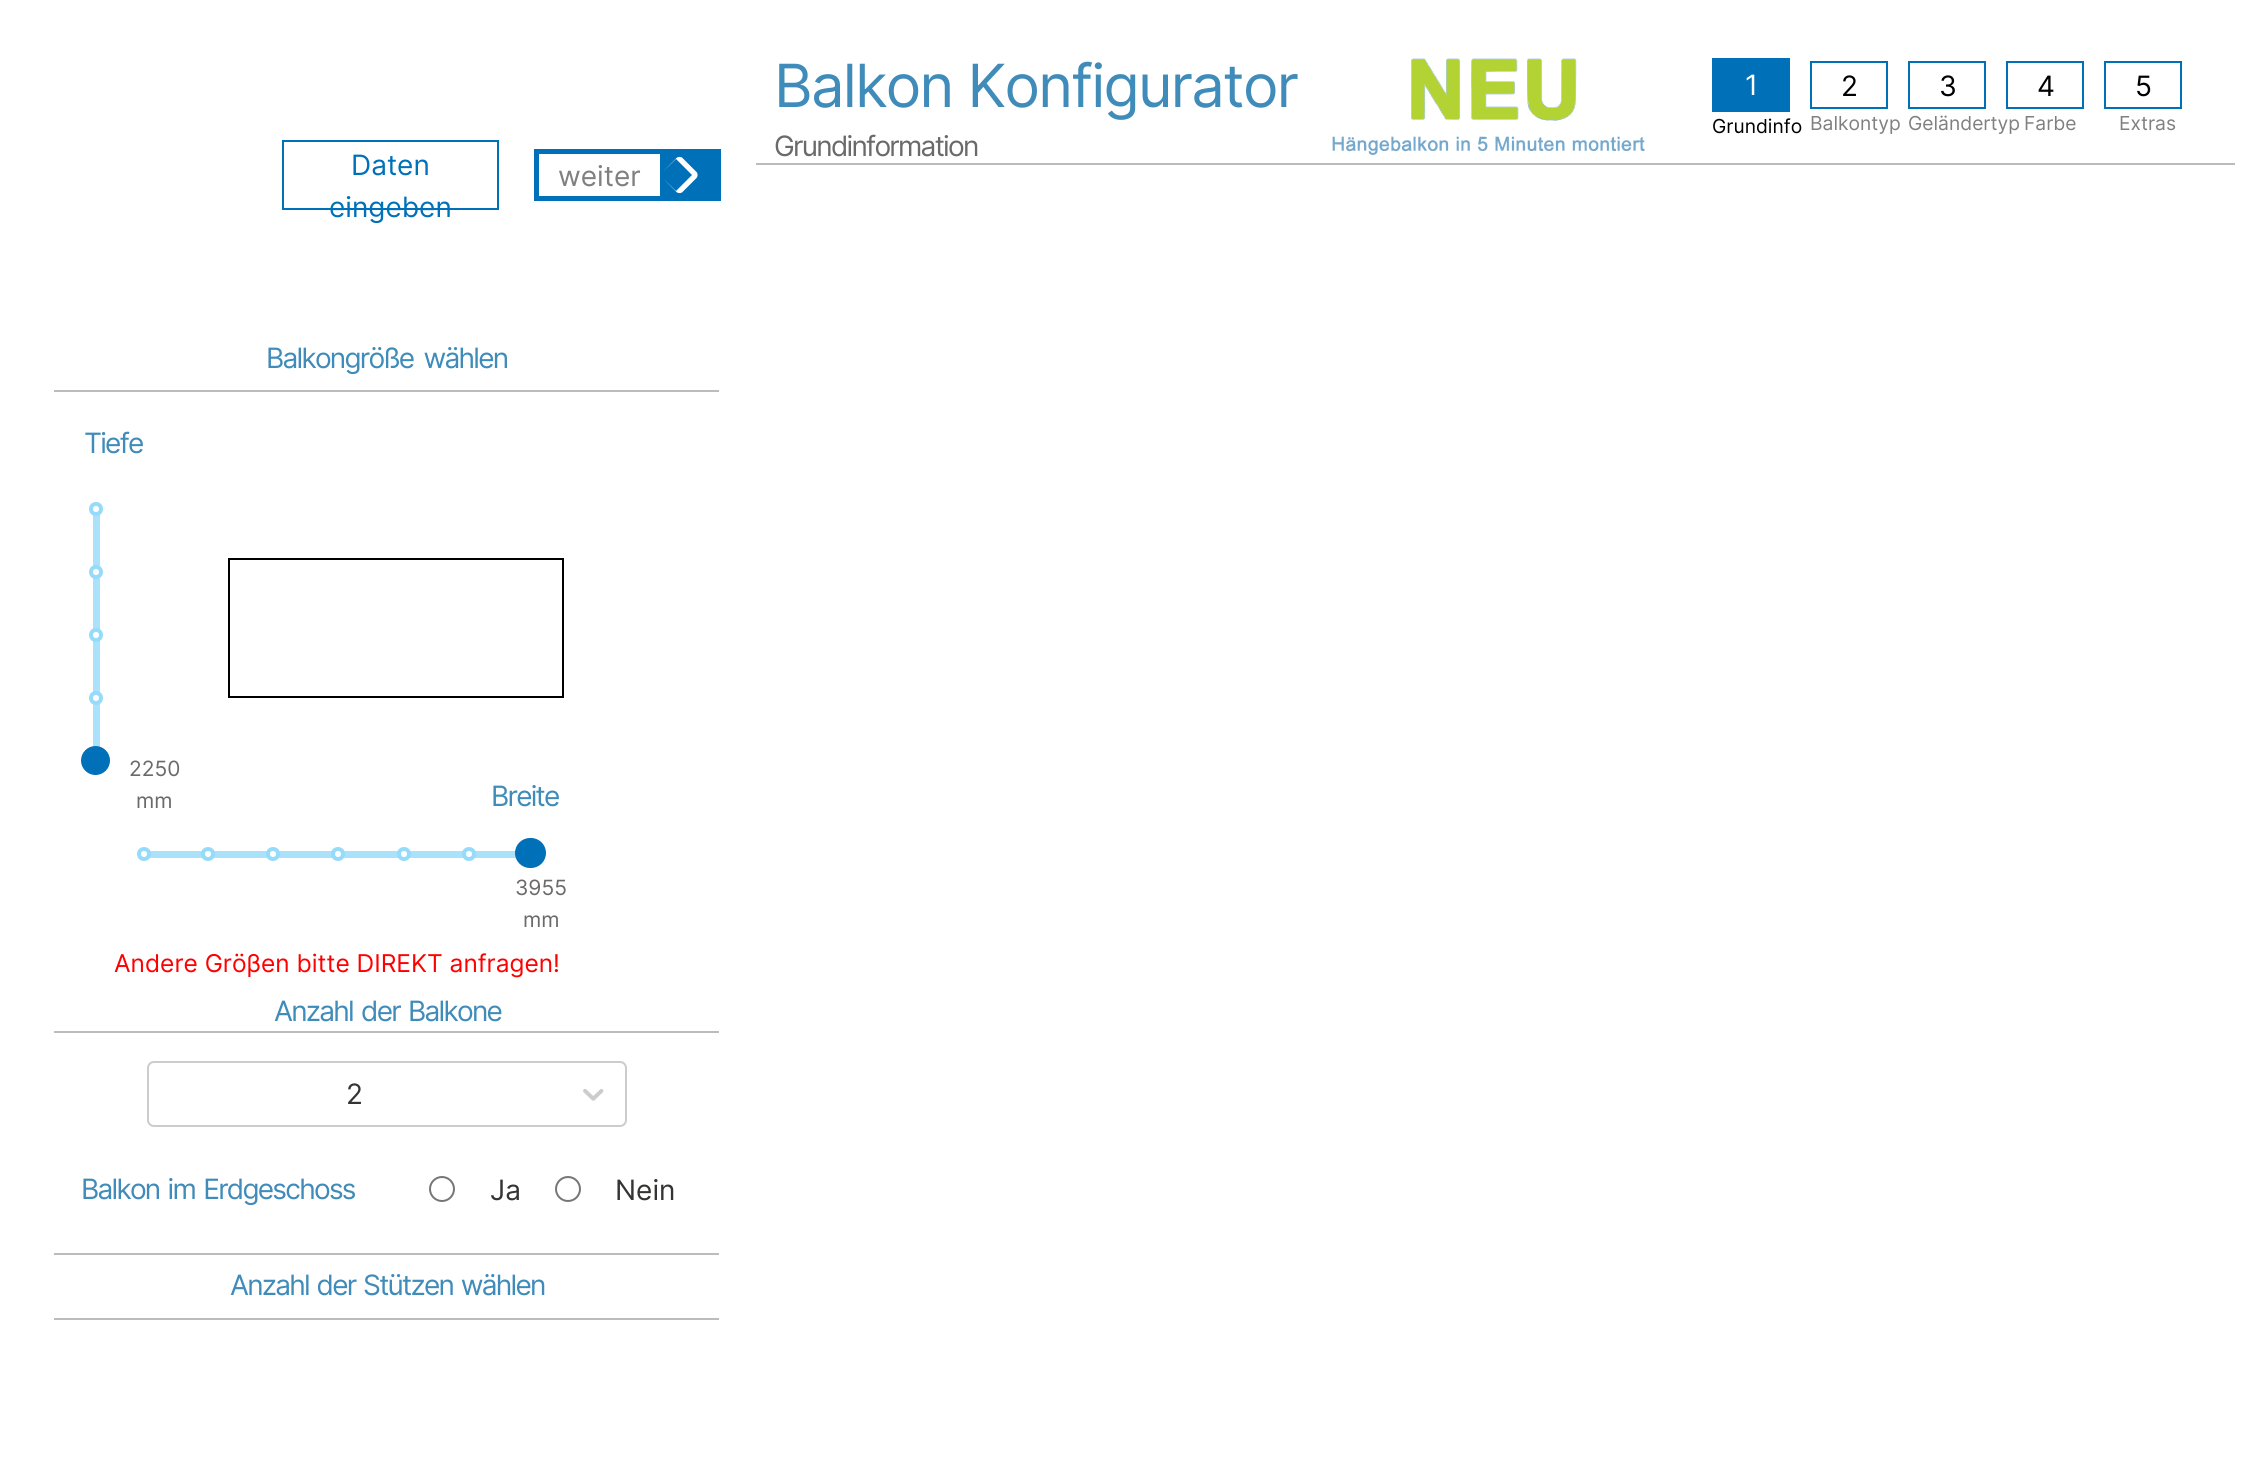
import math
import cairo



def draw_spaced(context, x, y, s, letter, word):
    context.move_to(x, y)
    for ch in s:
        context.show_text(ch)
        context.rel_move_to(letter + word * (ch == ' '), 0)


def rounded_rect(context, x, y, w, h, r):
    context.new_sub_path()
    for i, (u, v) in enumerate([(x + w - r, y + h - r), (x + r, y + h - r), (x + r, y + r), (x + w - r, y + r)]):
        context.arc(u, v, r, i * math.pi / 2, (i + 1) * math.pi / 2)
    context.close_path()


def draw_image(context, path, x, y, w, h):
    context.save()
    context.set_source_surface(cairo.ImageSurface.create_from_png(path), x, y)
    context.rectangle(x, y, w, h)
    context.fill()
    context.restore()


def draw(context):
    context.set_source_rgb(1, 1, 1)
    context.paint()
    draw_image(context, "images/1.png", 1332, 58, 313, 97)
    context.set_source_rgb(0, 112 / 255, 184 / 255)
    context.rectangle(1712, 58, 78, 54)
    context.fill()
    context.rectangle(1811, 62, 76, 46)
    context.stroke()
    context.rectangle(1909, 62, 76, 46)
    context.stroke()
    context.rectangle(2007, 62, 76, 46)
    context.stroke()
    context.rectangle(2105, 62, 76, 46)
    context.stroke()
    context.set_source_rgb(190 / 255, 187 / 255, 187 / 255)
    context.rectangle(756, 163, 1479, 2)
    context.fill()
    context.rectangle(283, 141, 215, 68)
    context.set_source_rgb(0, 112 / 255, 184 / 255)
    context.stroke()
    context.rectangle(534, 149, 187, 52)
    context.fill()
    context.set_source_rgb(1, 1, 1)
    context.rectangle(539, 154, 121, 42)
    context.fill()
    context.set_fill_rule(cairo.FillRule.EVEN_ODD)
    context.new_path()
    context.move_to(682.5, 158)
    context.line_to(696.5, 172)
    context.curve_to(698, 173.5, 698, 176.5, 696.5, 178)
    context.line_to(682.5, 192)
    context.curve_to(681, 193.5, 678, 193.5, 676.5, 192)
    context.line_to(662.5, 178)
    context.curve_to(661, 176.5, 661, 173.5, 662.5, 172)
    context.line_to(676.5, 158)
    context.curve_to(678, 156.5, 681, 156.5, 682.5, 158)
    context.close_path()
    context.move_to(679, 162)
    context.line_to(692, 175)
    context.line_to(676, 191)
    context.line_to(662.5, 178)
    context.curve_to(661, 176.5, 661, 173.5, 662.5, 172)
    context.line_to(676, 159)
    context.close_path()
    context.fill()
    context.set_source_rgb(190 / 255, 187 / 255, 187 / 255)
    context.rectangle(54, 390, 665, 2)
    context.fill()
    context.rectangle(229, 559, 334, 138)
    context.set_source_rgb(0, 0, 0)
    context.stroke()
    context.set_source_rgb(171 / 255, 226 / 255, 251 / 255)
    rounded_rect(context, 93, 502, 7, 252, 3.5)
    context.fill()
    context.set_source_rgb(1, 1, 1)
    context.arc(96, 509, 5, 0, 2 * math.pi)
    context.fill_preserve()
    context.set_source_rgb(150 / 255, 219 / 255, 250 / 255)
    context.set_line_width(4)
    context.stroke()
    context.set_source_rgb(1, 1, 1)
    context.arc(96, 572, 5, 0, 2 * math.pi)
    context.fill_preserve()
    context.set_source_rgb(150 / 255, 219 / 255, 250 / 255)
    context.stroke()
    context.set_source_rgb(1, 1, 1)
    context.arc(96, 635, 5, 0, 2 * math.pi)
    context.fill_preserve()
    context.set_source_rgb(150 / 255, 219 / 255, 250 / 255)
    context.stroke()
    context.set_source_rgb(1, 1, 1)
    context.arc(96, 698, 5, 0, 2 * math.pi)
    context.fill_preserve()
    context.set_source_rgb(150 / 255, 219 / 255, 250 / 255)
    context.stroke()
    context.set_source_rgb(0, 112 / 255, 184 / 255)
    context.arc(95.5, 760.5, 14.5, 0, 2 * math.pi)
    context.fill()
    context.set_source_rgb(171 / 255, 226 / 255, 251 / 255)
    context.rectangle(144, 851, 372, 7)
    context.fill()
    context.set_source_rgb(1, 1, 1)
    context.arc(144, 854, 5, 0, 2 * math.pi)
    context.fill_preserve()
    context.set_source_rgb(150 / 255, 219 / 255, 250 / 255)
    context.stroke()
    context.set_source_rgb(1, 1, 1)
    context.arc(208, 854, 5, 0, 2 * math.pi)
    context.fill_preserve()
    context.set_source_rgb(150 / 255, 219 / 255, 250 / 255)
    context.stroke()
    context.set_source_rgb(1, 1, 1)
    context.arc(273, 854, 5, 0, 2 * math.pi)
    context.fill_preserve()
    context.set_source_rgb(150 / 255, 219 / 255, 250 / 255)
    context.stroke()
    context.set_source_rgb(1, 1, 1)
    context.arc(338, 854, 5, 0, 2 * math.pi)
    context.fill_preserve()
    context.set_source_rgb(150 / 255, 219 / 255, 250 / 255)
    context.stroke()
    context.set_source_rgb(1, 1, 1)
    context.arc(404, 854, 5, 0, 2 * math.pi)
    context.fill_preserve()
    context.set_source_rgb(150 / 255, 219 / 255, 250 / 255)
    context.stroke()
    context.set_source_rgb(1, 1, 1)
    context.arc(469, 854, 5, 0, 2 * math.pi)
    context.fill_preserve()
    context.set_source_rgb(150 / 255, 219 / 255, 250 / 255)
    context.stroke()
    context.set_source_rgb(0, 112 / 255, 184 / 255)
    rounded_rect(context, 515, 838, 31, 30, 15)
    context.fill()
    context.set_source_rgb(190 / 255, 187 / 255, 187 / 255)
    context.rectangle(54, 1031, 665, 2)
    context.fill()
    rounded_rect(context, 148, 1062, 478, 64, 6)
    context.set_source_rgb(204 / 255, 204 / 255, 204 / 255)
    context.set_line_width(2)
    context.stroke()
    draw_image(context, "images/2.png", 583, 1088, 21, 13)
    context.arc(442, 1189, 12, 0, 2 * math.pi)
    context.set_source_rgb(118 / 255, 118 / 255, 118 / 255)
    context.stroke()
    context.arc(568, 1189, 12, 0, 2 * math.pi)
    context.stroke()
    context.set_source_rgb(190 / 255, 187 / 255, 187 / 255)
    context.rectangle(54, 1253, 665, 2)
    context.fill()
    context.rectangle(54, 1318, 665, 2)
    context.fill()
    context.select_font_face("Inter")
    context.set_font_size(59.5)
    context.set_source_rgb(63 / 255, 139 / 255, 185 / 255)
    draw_spaced(context, 774, 107, "Balkon Konfigurator", -1.75, 0)
    context.set_font_size(28)
    context.set_source_rgb(107 / 255, 106 / 255, 106 / 255)
    draw_spaced(context, 774, 156, "Grundinformation", -1.75, 0)
    context.set_source_rgb(1, 1, 1)
    context.move_to(1745, 95)
    context.show_text("1")
    context.set_font_size(19.25)
    context.set_source_rgb(0, 0, 0)
    context.move_to(1712, 133)
    context.show_text("Grundinfo")
    context.set_font_size(28)
    context.move_to(1841, 96)
    context.show_text("2")
    context.set_font_size(19.25)
    context.set_source_rgb(128 / 255, 128 / 255, 128 / 255)
    context.move_to(1810, 130)
    context.show_text("Balkontyp")
    context.set_font_size(28)
    context.set_source_rgb(0, 0, 0)
    context.move_to(1939, 96)
    context.show_text("3")
    context.set_font_size(19.25)
    context.set_source_rgb(128 / 255, 128 / 255, 128 / 255)
    context.move_to(1908, 130)
    context.show_text("Geländertyp")
    context.set_font_size(28)
    context.set_source_rgb(0, 0, 0)
    context.move_to(2037, 96)
    context.show_text("4")
    context.set_font_size(19.25)
    context.set_source_rgb(128 / 255, 128 / 255, 128 / 255)
    context.move_to(2024, 130)
    context.show_text("Farbe")
    context.set_font_size(28)
    context.set_source_rgb(0, 0, 0)
    context.move_to(2135, 96)
    context.show_text("5")
    context.set_font_size(19.25)
    context.set_source_rgb(128 / 255, 128 / 255, 128 / 255)
    context.move_to(2119, 130)
    context.show_text("Extras")
    context.set_font_size(28)
    context.set_source_rgb(0, 112 / 255, 184 / 255)
    context.move_to(351, 175)
    context.show_text("Daten")
    context.move_to(329, 217)
    context.show_text("eingeben")
    context.set_source_rgb(128 / 255, 128 / 255, 128 / 255)
    context.move_to(558, 186)
    context.show_text("weiter")
    context.set_source_rgb(63 / 255, 139 / 255, 185 / 255)
    draw_spaced(context, 266, 368, "Balkongröße wählen", -1.75, 4)
    draw_spaced(context, 84, 453, "Tiefe", -1.75, 0)
    context.set_font_size(21)
    context.set_source_rgb(107 / 255, 106 / 255, 106 / 255)
    context.move_to(129, 776)
    context.show_text("2250")
    context.move_to(136, 808)
    context.show_text("mm")
    context.set_font_size(28)
    context.set_source_rgb(63 / 255, 139 / 255, 185 / 255)
    draw_spaced(context, 491, 806, "Breite", -1.75, 0)
    context.set_font_size(21)
    context.set_source_rgb(107 / 255, 106 / 255, 106 / 255)
    context.move_to(515, 895)
    context.show_text("3955")
    context.move_to(523, 927)
    context.show_text("mm")
    context.set_font_size(24.5)
    context.set_source_rgb(1, 0, 0)
    context.move_to(114, 972)
    context.show_text("Andere Gröβen bitte DIREKT anfragen!")
    context.set_font_size(28)
    context.set_source_rgb(63 / 255, 139 / 255, 185 / 255)
    draw_spaced(context, 274, 1021, "Anzahl der Balkone", -1.75, 2)
    context.set_source_rgb(52 / 255, 52 / 255, 51 / 255)
    context.move_to(346, 1104)
    context.show_text("2")
    context.set_source_rgb(63 / 255, 139 / 255, 185 / 255)
    draw_spaced(context, 81, 1199, "Balkon im Erdgeschoss", -1.75, 2)
    context.set_source_rgb(52 / 255, 52 / 255, 51 / 255)
    context.move_to(490, 1200)
    context.show_text("Ja")
    context.move_to(615, 1200)
    context.show_text("Nein")
    context.set_source_rgb(63 / 255, 139 / 255, 185 / 255)
    draw_spaced(context, 230, 1295, "Anzahl der Stützen wählen", -1.75, 1.5)


surface = cairo.ImageSurface(cairo.Format.RGB24, 2251, 1460)
context = cairo.Context(surface)
options = cairo.FontOptions()
options.set_hint_metrics(cairo.HintMetrics.OFF)
options.set_hint_style(cairo.HintStyle.NONE)
context.set_font_options(options)
context.set_miter_limit(4)
draw(context)
surface.write_to_png("out.png")
